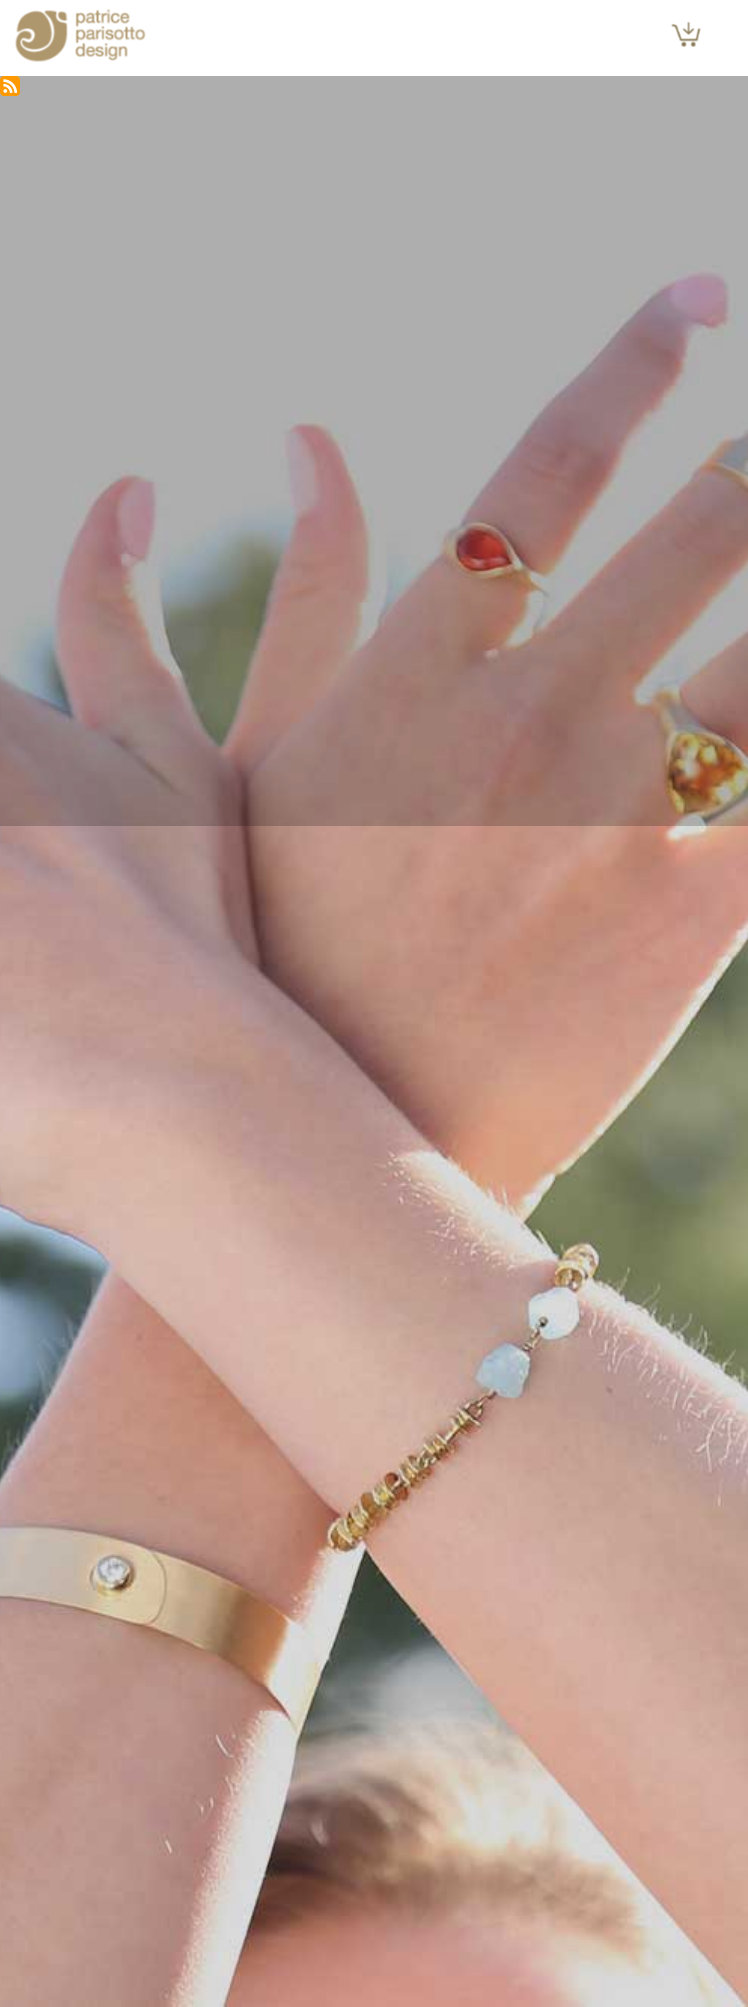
import math
import cairo



def draw_image(context, path, x, y, w, h):
    context.save()
    context.set_source_surface(cairo.ImageSurface.create_from_png(path), x, y)
    context.rectangle(x, y, w, h)
    context.fill()
    context.restore()


def draw(context):
    context.set_source_rgb(1, 1, 1)
    context.paint()
    draw_image(context, "images/1.png", 0, 76, 748, 1931)
    draw_image(context, "images/2.png", 15, 9, 131, 53)
    draw_image(context, "images/3.png", 671, 21, 30, 26)
    context.set_source_rgba(0, 0, 0, 0.2)
    context.rectangle(0, 76, 748, 750)
    context.fill()
    draw_image(context, "images/4.png", 0, 76, 20, 20)


surface = cairo.ImageSurface(cairo.Format.RGB24, 748, 2007)
context = cairo.Context(surface)
options = cairo.FontOptions()
options.set_hint_metrics(cairo.HintMetrics.OFF)
options.set_hint_style(cairo.HintStyle.NONE)
context.set_font_options(options)
context.set_miter_limit(4)
draw(context)
surface.write_to_png("out.png")
